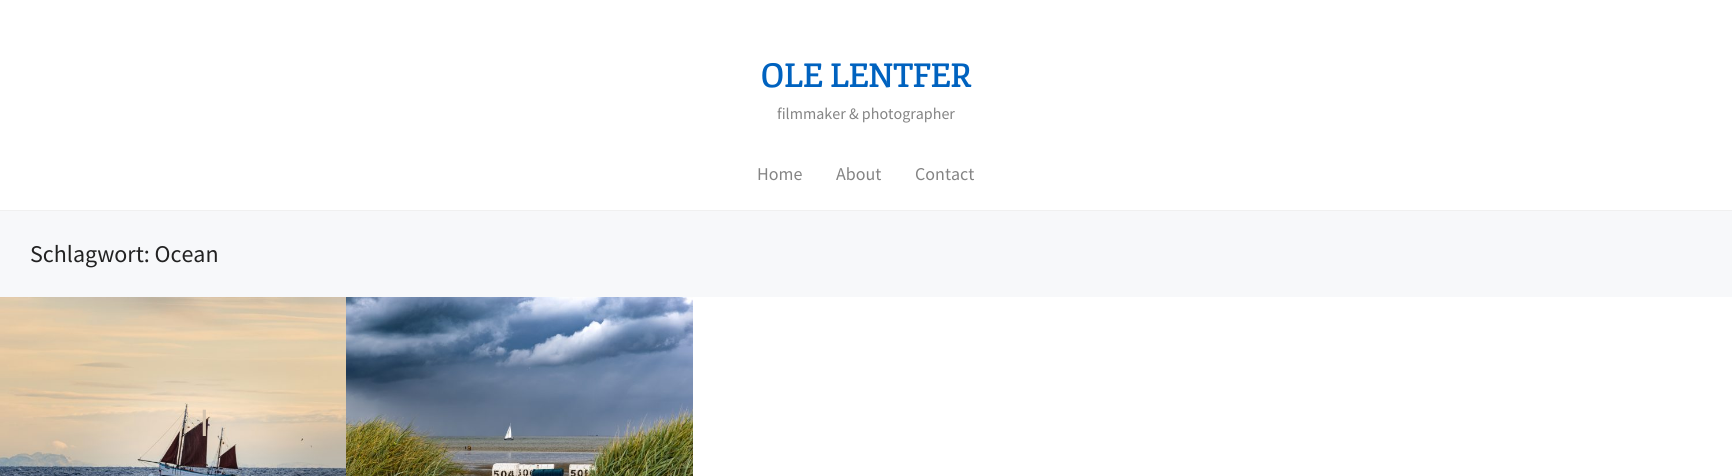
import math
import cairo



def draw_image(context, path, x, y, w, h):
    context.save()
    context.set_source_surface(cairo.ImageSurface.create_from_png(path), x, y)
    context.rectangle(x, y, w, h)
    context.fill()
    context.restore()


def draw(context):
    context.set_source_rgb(1, 1, 1)
    context.paint()
    context.set_source_rgb(247 / 255, 248 / 255, 250 / 255)
    context.rectangle(0, 211, 1732, 86)
    context.fill()
    context.set_source_rgb(240 / 255, 240 / 255, 240 / 255)
    context.rectangle(0, 210, 1732, 1)
    context.fill()
    draw_image(context, "images/1.png", 0, 297, 346, 179)
    draw_image(context, "images/2.png", 346, 297, 347, 179)
    context.select_font_face("Fjord", cairo.FontSlant.NORMAL, cairo.FontWeight.BOLD)
    context.set_font_size(32)
    context.set_source_rgb(0, 98 / 255, 191 / 255)
    context.move_to(760, 87)
    context.show_text("OLE LENTFER")
    context.select_font_face("Source Sans Pro")
    context.set_font_size(16)
    context.set_source_rgb(132 / 255, 132 / 255, 132 / 255)
    context.move_to(777, 119)
    context.show_text("filmmaker & photographer")
    context.set_font_size(18)
    context.move_to(757, 180)
    context.show_text("Home")
    context.move_to(836, 180)
    context.show_text("About")
    context.move_to(915, 180)
    context.show_text("Contact")
    context.set_font_size(24)
    context.set_source_rgb(34 / 255, 34 / 255, 34 / 255)
    context.move_to(30, 262)
    context.show_text("Schlagwort: Ocean")
    context.select_font_face("Josefin Sans")
    context.set_font_size(34)
    context.set_source_rgb(213 / 255, 196 / 255, 175 / 255)
    context.move_to(200, 436)
    context.show_text("l")


surface = cairo.ImageSurface(cairo.Format.RGB24, 1732, 476)
context = cairo.Context(surface)
options = cairo.FontOptions()
options.set_hint_metrics(cairo.HintMetrics.OFF)
options.set_hint_style(cairo.HintStyle.NONE)
context.set_font_options(options)
context.set_miter_limit(4)
draw(context)
surface.write_to_png("out.png")
